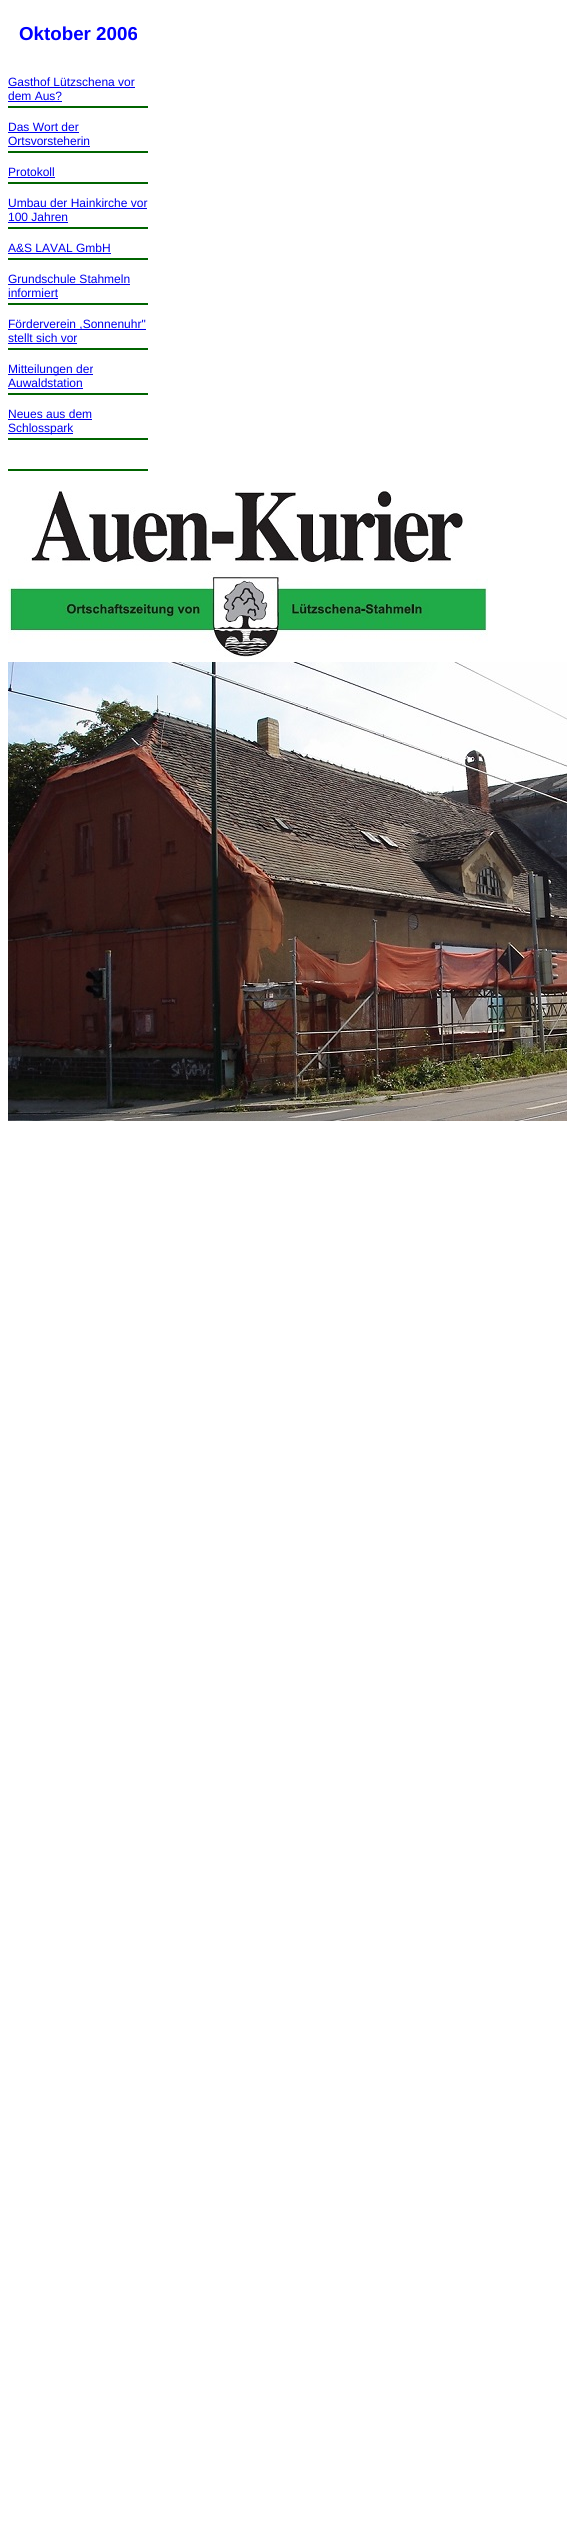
import math
import cairo



def draw_image(context, path, x, y, w, h):
    context.save()
    context.set_source_surface(cairo.ImageSurface.create_from_png(path), x, y)
    context.rectangle(x, y, w, h)
    context.fill()
    context.restore()


def draw(context):
    context.set_source_rgb(1, 1, 1)
    context.paint()
    context.set_source_rgb(0, 100 / 255, 0)
    context.rectangle(8, 106, 140, 2)
    context.fill()
    context.set_source_rgb(0, 0, 238 / 255)
    context.rectangle(8, 87, 127, 1)
    context.fill()
    context.rectangle(8, 101, 54, 1)
    context.fill()
    context.set_source_rgb(0, 100 / 255, 0)
    context.rectangle(8, 151, 140, 2)
    context.fill()
    context.set_source_rgb(0, 0, 238 / 255)
    context.rectangle(8, 132, 71, 1)
    context.fill()
    context.rectangle(8, 146, 82, 1)
    context.fill()
    context.set_source_rgb(0, 100 / 255, 0)
    context.rectangle(8, 182, 140, 2)
    context.fill()
    context.set_source_rgb(0, 0, 238 / 255)
    context.rectangle(8, 177, 47, 1)
    context.fill()
    context.set_source_rgb(0, 100 / 255, 0)
    context.rectangle(8, 227, 140, 2)
    context.fill()
    context.set_source_rgb(0, 0, 238 / 255)
    context.rectangle(8, 208, 139, 1)
    context.fill()
    context.rectangle(8, 222, 60, 1)
    context.fill()
    context.set_source_rgb(0, 100 / 255, 0)
    context.rectangle(8, 258, 140, 2)
    context.fill()
    context.set_source_rgb(0, 0, 238 / 255)
    context.rectangle(8, 253, 103, 1)
    context.fill()
    context.set_source_rgb(0, 100 / 255, 0)
    context.rectangle(8, 303, 140, 2)
    context.fill()
    context.set_source_rgb(0, 0, 238 / 255)
    context.rectangle(8, 284, 122, 1)
    context.fill()
    context.rectangle(8, 298, 50, 1)
    context.fill()
    context.set_source_rgb(0, 100 / 255, 0)
    context.rectangle(8, 348, 140, 2)
    context.fill()
    context.set_source_rgb(0, 0, 238 / 255)
    context.rectangle(8, 329, 138, 1)
    context.fill()
    context.rectangle(8, 343, 69, 1)
    context.fill()
    context.set_source_rgb(0, 100 / 255, 0)
    context.rectangle(8, 393, 140, 2)
    context.fill()
    context.set_source_rgb(0, 0, 238 / 255)
    context.rectangle(8, 374, 85, 1)
    context.fill()
    context.rectangle(8, 388, 75, 1)
    context.fill()
    context.set_source_rgb(0, 100 / 255, 0)
    context.rectangle(8, 438, 140, 2)
    context.fill()
    context.set_source_rgb(0, 0, 238 / 255)
    context.rectangle(8, 419, 84, 1)
    context.fill()
    context.rectangle(8, 433, 65, 1)
    context.fill()
    context.set_source_rgb(0, 100 / 255, 0)
    context.rectangle(8, 469, 140, 2)
    context.fill()
    draw_image(context, "images/1.png", 8, 491, 480, 166)
    draw_image(context, "images/2.png", 8, 662, 559, 459)
    context.select_font_face("Liberation Sans", cairo.FontSlant.NORMAL, cairo.FontWeight.BOLD)
    context.set_font_size(18.75)
    context.set_source_rgb(0, 0, 1)
    context.move_to(19, 40)
    context.show_text("Oktober 2006")
    context.select_font_face("Liberation Sans")
    context.set_font_size(12)
    context.set_source_rgb(0, 0, 238 / 255)
    context.move_to(8, 86)
    context.show_text("Gasthof Lützschena vor")
    context.move_to(8, 100)
    context.show_text("dem Aus?")
    context.move_to(8, 131)
    context.show_text("Das Wort der")
    context.move_to(8, 145)
    context.show_text("Ortsvorsteherin")
    context.move_to(8, 176)
    context.show_text("Protokoll")
    context.move_to(8, 207)
    context.show_text("Umbau der Hainkirche vor")
    context.move_to(8, 221)
    context.show_text("100 Jahren")
    context.move_to(8, 252)
    context.show_text("A&S LAVAL GmbH")
    context.move_to(8, 283)
    context.show_text("Grundschule Stahmeln")
    context.move_to(8, 297)
    context.show_text("informiert")
    context.move_to(8, 328)
    context.show_text("Förderverein ,Sonnenuhr\"")
    context.move_to(8, 342)
    context.show_text("stellt sich vor")
    context.move_to(8, 373)
    context.show_text("Mitteilungen der")
    context.move_to(8, 387)
    context.show_text("Auwaldstation")
    context.move_to(8, 418)
    context.show_text("Neues aus dem")
    context.move_to(8, 432)
    context.show_text("Schlosspark")


surface = cairo.ImageSurface(cairo.Format.RGB24, 567, 2544)
context = cairo.Context(surface)
options = cairo.FontOptions()
options.set_hint_metrics(cairo.HintMetrics.OFF)
options.set_hint_style(cairo.HintStyle.NONE)
context.set_font_options(options)
context.set_miter_limit(4)
draw(context)
surface.write_to_png("out.png")
